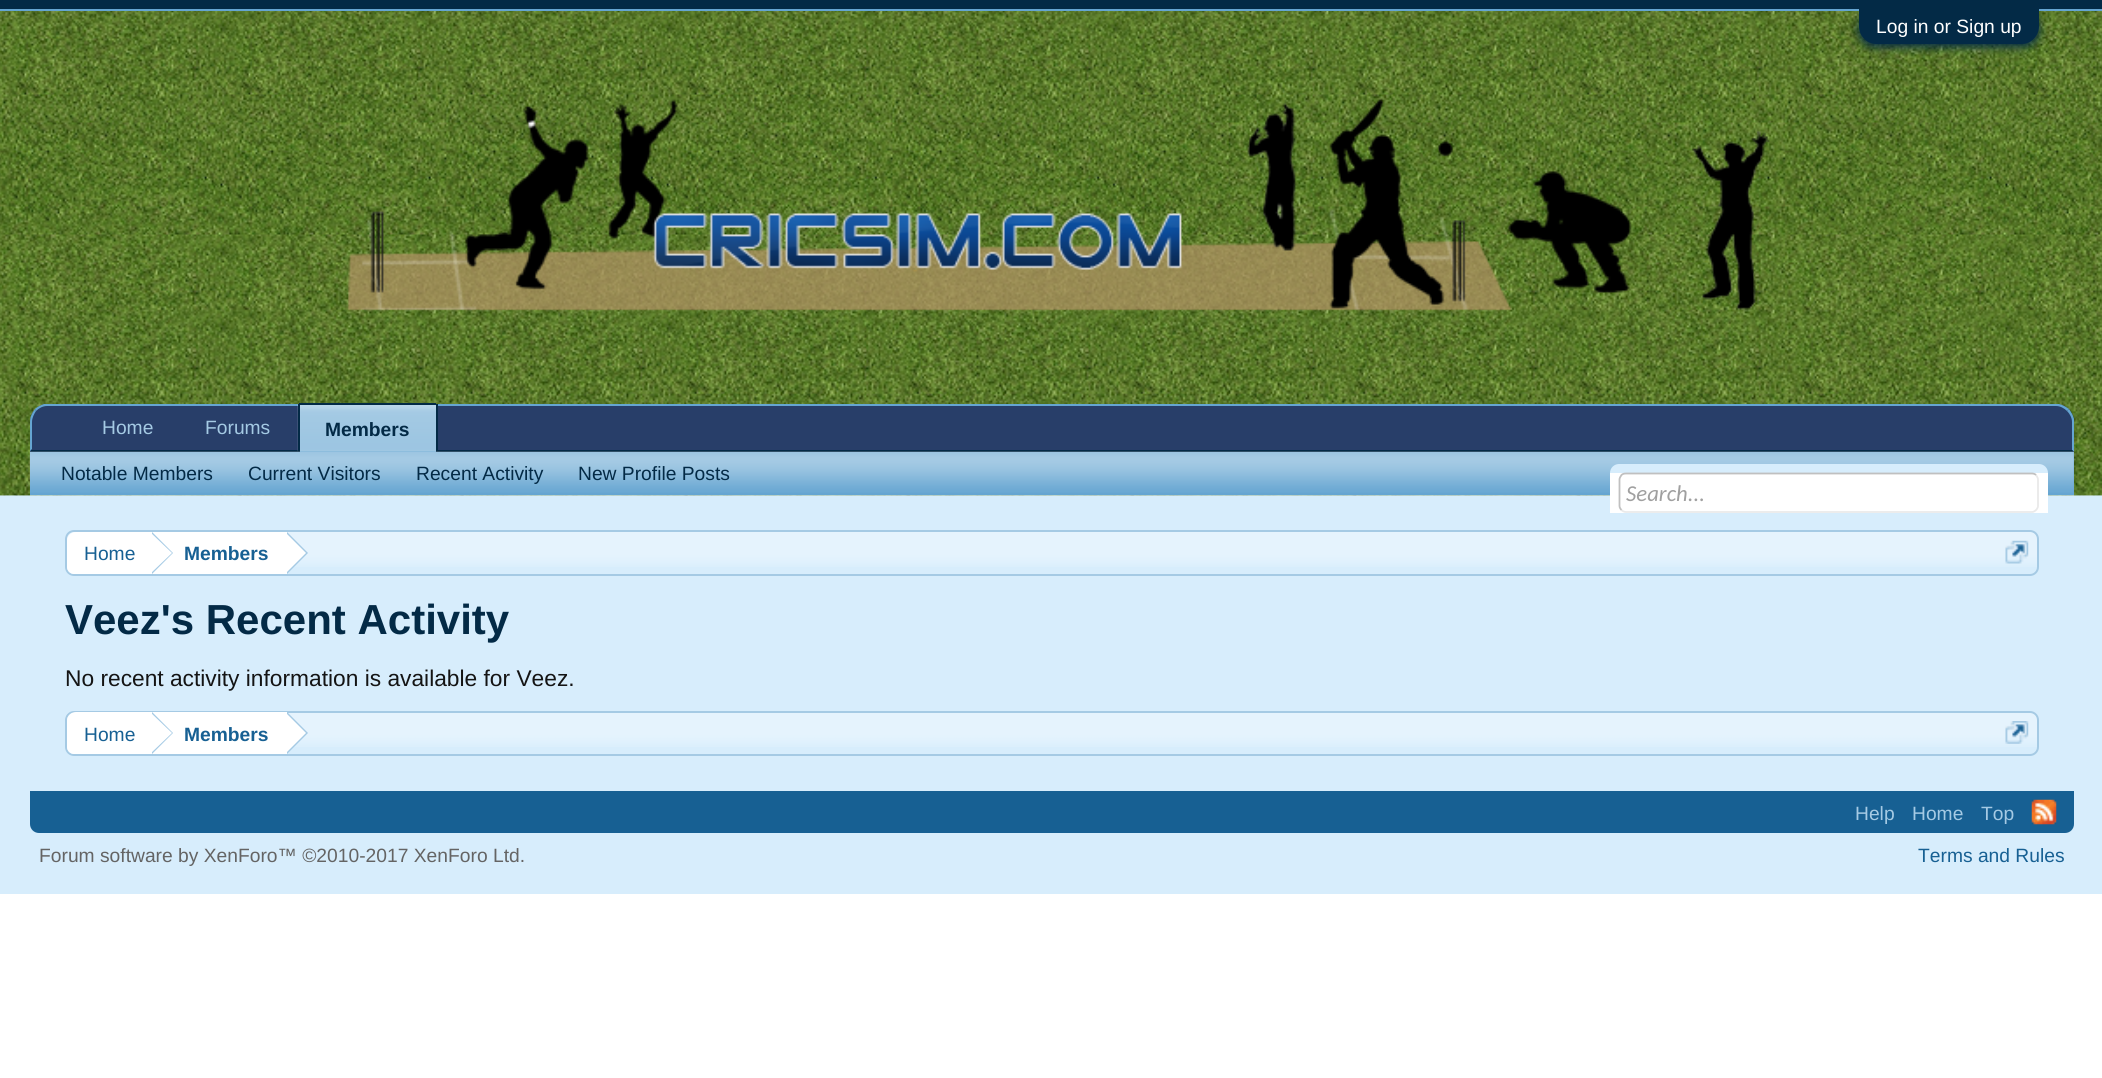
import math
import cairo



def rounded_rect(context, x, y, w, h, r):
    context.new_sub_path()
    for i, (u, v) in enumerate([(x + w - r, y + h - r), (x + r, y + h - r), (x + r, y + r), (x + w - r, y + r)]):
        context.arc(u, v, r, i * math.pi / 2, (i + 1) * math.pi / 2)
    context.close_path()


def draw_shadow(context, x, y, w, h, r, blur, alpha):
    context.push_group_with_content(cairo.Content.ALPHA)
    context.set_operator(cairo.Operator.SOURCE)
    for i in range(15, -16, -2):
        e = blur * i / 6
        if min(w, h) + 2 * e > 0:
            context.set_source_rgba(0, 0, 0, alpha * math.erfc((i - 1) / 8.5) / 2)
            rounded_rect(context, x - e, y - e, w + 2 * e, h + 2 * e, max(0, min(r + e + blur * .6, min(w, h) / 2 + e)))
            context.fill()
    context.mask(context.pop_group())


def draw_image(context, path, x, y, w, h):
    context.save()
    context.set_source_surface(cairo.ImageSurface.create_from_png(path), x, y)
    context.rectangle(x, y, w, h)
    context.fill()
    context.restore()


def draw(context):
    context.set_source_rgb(1, 1, 1)
    context.paint()
    context.set_source_rgb(215 / 255, 237 / 255, 252 / 255)
    context.rectangle(0, 495, 2102, 399)
    context.fill()
    context.set_source_rgb(3 / 255, 42 / 255, 70 / 255)
    context.rectangle(0, 0, 2102, 9)
    context.fill()
    context.set_source_rgb(101 / 255, 165 / 255, 209 / 255)
    context.rectangle(0, 9, 2102, 2)
    context.fill()
    draw_image(context, "images/5.png", 0, 495, 2102, 1)
    context.set_source_rgb(215 / 255, 237 / 255, 252 / 255)
    context.rectangle(30, 495, 2044, 1)
    context.fill()
    draw_image(context, "images/1.png", 0, 11, 2102, 485)
    context.set_source_rgb(3 / 255, 42 / 255, 70 / 255)
    draw_shadow(context, 1859, 12, 180, 35, 17.5, 4.5, 1)
    context.set_source_rgb(3 / 255, 42 / 255, 70 / 255)
    context.new_path()
    context.move_to(1859, 9)
    context.line_to(2039, 9)
    context.line_to(2039, 26.5)
    context.curve_to(2039, 36, 2031, 44, 2021.5, 44)
    context.line_to(1876.5, 44)
    context.curve_to(1867, 44, 1859, 36, 1859, 26.5)
    context.close_path()
    context.fill()
    draw_image(context, "images/2.png", 346, 99, 1424, 212)
    context.set_source_rgb(40 / 255, 62 / 255, 105 / 255)
    context.new_path()
    context.move_to(48, 404)
    context.line_to(2056, 404)
    context.curve_to(2066, 404, 2074, 412, 2074, 422)
    context.line_to(2074, 452)
    context.line_to(30, 452)
    context.line_to(30, 422)
    context.curve_to(30, 412, 38, 404, 48, 404)
    context.close_path()
    context.fill()
    context.set_source_rgb(101 / 255, 165 / 255, 209 / 255)
    context.new_path()
    context.move_to(47, 406)
    context.curve_to(43, 406, 39, 408, 36, 411)
    context.line_to(35, 409)
    context.curve_to(37, 407, 41, 405, 44, 404)
    context.line_to(2059, 404)
    context.curve_to(2063, 405, 2066, 407, 2069, 409)
    context.line_to(2067, 411)
    context.curve_to(2064, 408, 2060, 406, 2056, 406)
    context.close_path()
    context.fill()
    context.new_path()
    context.move_to(2069, 409)
    context.curve_to(2071, 412, 2073, 415, 2074, 419)
    context.line_to(2074, 452)
    context.line_to(2072, 450)
    context.line_to(2072, 422)
    context.curve_to(2072, 418, 2070, 414, 2067, 411)
    context.close_path()
    context.fill()
    context.set_source_rgb(3 / 255, 42 / 255, 70 / 255)
    context.new_path()
    context.move_to(2074, 452)
    context.line_to(30, 452)
    context.line_to(32, 449)
    context.line_to(32, 450)
    context.line_to(2072, 450)
    context.close_path()
    context.fill()
    context.set_source_rgb(101 / 255, 165 / 255, 209 / 255)
    context.new_path()
    context.move_to(30, 451)
    context.line_to(30, 422)
    context.curve_to(30, 417, 32, 413, 35, 409)
    context.line_to(36, 411)
    context.curve_to(34, 414, 32, 418, 32, 422)
    context.line_to(32, 449)
    context.close_path()
    context.fill()
    context.new_path()
    context.move_to(302, 403)
    context.line_to(434, 403)
    context.curve_to(436, 403, 438, 405, 438, 407)
    context.line_to(438, 452)
    context.line_to(298, 452)
    context.line_to(298, 407)
    context.curve_to(298, 405, 300, 403, 302, 403)
    context.close_path()
    context.fill()
    draw_image(context, "images/3.png", 297, 404, 139, 48)
    context.set_source_rgb(3 / 255, 42 / 255, 70 / 255)
    context.rectangle(299, 403, 137, 2)
    context.fill()
    context.rectangle(436, 404, 2, 48)
    context.fill()
    context.rectangle(298, 404, 2, 48)
    context.fill()
    context.set_source_rgb(101 / 255, 165 / 255, 209 / 255)
    context.rectangle(30, 452, 2044, 43)
    context.fill()
    draw_image(context, "images/4.png", 29, 451, 2045, 42)
    context.set_source_rgb(215 / 255, 237 / 255, 252 / 255)
    rounded_rect(context, 1610, 464, 438, 49, 9)
    context.fill()
    context.set_source_rgb(1, 1, 1)
    context.rectangle(1610, 473, 438, 40)
    context.fill()
    context.new_path()
    context.move_to(2036, 475)
    context.curve_to(2037, 476.5, 2038, 478, 2038, 479.5)
    context.line_to(2038, 506)
    context.curve_to(2038, 507.5, 2037, 509, 2036, 510)
    context.curve_to(2035, 511, 2033.5, 512, 2032, 512)
    context.line_to(1626, 512)
    context.curve_to(1624, 512, 1622.5, 511, 1621.5, 510)
    context.set_source_rgb(233 / 255, 233 / 255, 233 / 255)
    context.set_line_width(1.8)
    context.stroke()
    context.new_path()
    context.move_to(1621.5, 510)
    context.curve_to(1620.5, 509, 1619.5, 507.5, 1619.5, 506)
    context.line_to(1619.5, 479.5)
    context.curve_to(1619.5, 478, 1620.5, 476.5, 1621.5, 475)
    context.curve_to(1622.5, 474, 1624, 473.5, 1626, 473.5)
    context.line_to(2032, 473.5)
    context.curve_to(2033.5, 473.5, 2035, 474, 2036, 475)
    context.set_source_rgb(192 / 255, 192 / 255, 192 / 255)
    context.stroke()
    draw_image(context, "images/6.png", 65, 532, 1974, 35)
    rounded_rect(context, 66, 531, 1972, 44, 8)
    context.set_source_rgb(165 / 255, 202 / 255, 228 / 255)
    context.set_line_width(2)
    context.stroke()
    context.save()
    rounded_rect(context, 67, 532, 1970, 42, 7)
    context.clip()
    context.set_source_rgb(1, 1, 1)
    context.new_path()
    context.move_to(76, 532)
    context.line_to(152, 532)
    context.line_to(152, 576)
    context.line_to(76, 576)
    context.curve_to(71, 576, 67, 572, 67, 567)
    context.line_to(67, 541)
    context.curve_to(67, 536, 71, 532, 76, 532)
    context.close_path()
    context.fill()
    context.restore()
    context.set_source_rgb(1, 1, 1)
    context.rectangle(152, 532, 135, 42)
    context.fill()
    context.set_source_rgb(165 / 255, 202 / 255, 228 / 255)
    context.new_path()
    context.move_to(152, 574)
    context.line_to(152, 532)
    context.line_to(173, 553)
    context.close_path()
    context.fill()
    context.set_source_rgb(1, 1, 1)
    context.new_path()
    context.move_to(150, 574)
    context.line_to(150, 532)
    context.line_to(172, 553)
    context.close_path()
    context.fill()
    context.set_source_rgb(165 / 255, 202 / 255, 228 / 255)
    context.new_path()
    context.move_to(287, 574)
    context.line_to(287, 532)
    context.line_to(308, 553)
    context.close_path()
    context.fill()
    context.set_source_rgb(1, 1, 1)
    context.new_path()
    context.move_to(285, 574)
    context.line_to(285, 532)
    context.line_to(306, 553)
    context.close_path()
    context.fill()
    draw_image(context, "images/7.png", 2005, 540, 24, 24)
    draw_image(context, "images/8.png", 65, 712, 1974, 35)
    rounded_rect(context, 66, 712, 1972, 43, 8)
    context.set_source_rgb(165 / 255, 202 / 255, 228 / 255)
    context.stroke()
    context.save()
    rounded_rect(context, 67, 712, 1970, 42, 7)
    context.clip()
    context.set_source_rgb(1, 1, 1)
    context.new_path()
    context.move_to(76, 712)
    context.line_to(152, 712)
    context.line_to(152, 756)
    context.line_to(76, 756)
    context.curve_to(71, 756, 67, 752, 67, 747)
    context.line_to(67, 721)
    context.curve_to(67, 716, 71, 712, 76, 712)
    context.close_path()
    context.fill()
    context.restore()
    context.set_source_rgb(1, 1, 1)
    context.rectangle(152, 712, 135, 42)
    context.fill()
    context.set_source_rgb(165 / 255, 202 / 255, 228 / 255)
    context.new_path()
    context.move_to(152, 754)
    context.line_to(152, 712)
    context.line_to(173, 733)
    context.close_path()
    context.fill()
    context.set_source_rgb(1, 1, 1)
    context.new_path()
    context.move_to(150, 754)
    context.line_to(150, 712)
    context.line_to(172, 733)
    context.close_path()
    context.fill()
    context.set_source_rgb(165 / 255, 202 / 255, 228 / 255)
    context.new_path()
    context.move_to(287, 754)
    context.line_to(287, 712)
    context.line_to(308, 733)
    context.close_path()
    context.fill()
    context.set_source_rgb(1, 1, 1)
    context.new_path()
    context.move_to(285, 754)
    context.line_to(285, 712)
    context.line_to(306, 733)
    context.close_path()
    context.fill()
    draw_image(context, "images/9.png", 2005, 721, 24, 23)
    context.set_source_rgb(23 / 255, 96 / 255, 147 / 255)
    context.new_path()
    context.move_to(30, 791)
    context.line_to(2074, 791)
    context.line_to(2074, 824)
    context.curve_to(2074, 829, 2070, 833, 2065, 833)
    context.line_to(39, 833)
    context.curve_to(34, 833, 30, 829, 30, 824)
    context.close_path()
    context.fill()
    draw_image(context, "images/10.png", 2031, 799, 26, 26)
    context.select_font_face("Liberation Sans")
    context.set_font_size(19.25)
    context.set_source_rgb(1, 1, 1)
    context.move_to(1876, 33)
    context.show_text("Log in or Sign up")
    context.set_source_rgb(165 / 255, 202 / 255, 228 / 255)
    context.move_to(102, 434)
    context.show_text("Home")
    context.move_to(205, 434)
    context.show_text("Forums")
    context.select_font_face("Liberation Sans", cairo.FontSlant.NORMAL, cairo.FontWeight.BOLD)
    context.set_source_rgb(3 / 255, 42 / 255, 70 / 255)
    context.move_to(325, 436)
    context.show_text("Members")
    context.select_font_face("Liberation Sans")
    context.move_to(61, 480)
    context.show_text("Notable Members")
    context.move_to(248, 480)
    context.show_text("Current Visitors")
    context.move_to(416, 480)
    context.show_text("Recent Activity")
    context.move_to(578, 480)
    context.show_text("New Profile Posts")
    context.select_font_face("Carlito", cairo.FontSlant.ITALIC)
    context.set_font_size(22.75)
    context.set_source_rgb(160 / 255, 160 / 255, 160 / 255)
    context.move_to(1626, 501)
    context.show_text("Search...")
    context.select_font_face("Liberation Sans")
    context.set_font_size(19.25)
    context.set_source_rgb(23 / 255, 96 / 255, 147 / 255)
    context.move_to(84, 560)
    context.show_text("Home")
    context.select_font_face("Liberation Sans", cairo.FontSlant.NORMAL, cairo.FontWeight.BOLD)
    context.move_to(184, 560)
    context.show_text("Members")
    context.set_font_size(42)
    context.set_source_rgb(3 / 255, 42 / 255, 70 / 255)
    context.move_to(65, 634)
    context.show_text("Veez's Recent Activity")
    context.select_font_face("Liberation Sans")
    context.set_font_size(22.75)
    context.set_source_rgb(20 / 255, 20 / 255, 20 / 255)
    context.move_to(65, 686)
    context.show_text("No recent activity information is available for Veez.")
    context.set_font_size(19.25)
    context.set_source_rgb(23 / 255, 96 / 255, 147 / 255)
    context.move_to(84, 741)
    context.show_text("Home")
    context.select_font_face("Liberation Sans", cairo.FontSlant.NORMAL, cairo.FontWeight.BOLD)
    context.move_to(184, 741)
    context.show_text("Members")
    context.select_font_face("Liberation Sans")
    context.set_source_rgb(165 / 255, 202 / 255, 228 / 255)
    context.move_to(1855, 820)
    context.show_text("Help")
    context.move_to(1912, 820)
    context.show_text("Home")
    context.move_to(1981, 820)
    context.show_text("Top")
    context.set_source_rgb(100 / 255, 100 / 255, 100 / 255)
    context.move_to(39, 862)
    context.show_text("Forum software by XenForo™ ©2010-2017 XenForo Ltd.")
    context.set_source_rgb(23 / 255, 96 / 255, 147 / 255)
    context.move_to(1918, 862)
    context.show_text("Terms and Rules")


surface = cairo.ImageSurface(cairo.Format.RGB24, 2102, 1078)
context = cairo.Context(surface)
options = cairo.FontOptions()
options.set_hint_metrics(cairo.HintMetrics.OFF)
options.set_hint_style(cairo.HintStyle.NONE)
context.set_font_options(options)
context.set_miter_limit(4)
draw(context)
surface.write_to_png("out.png")
